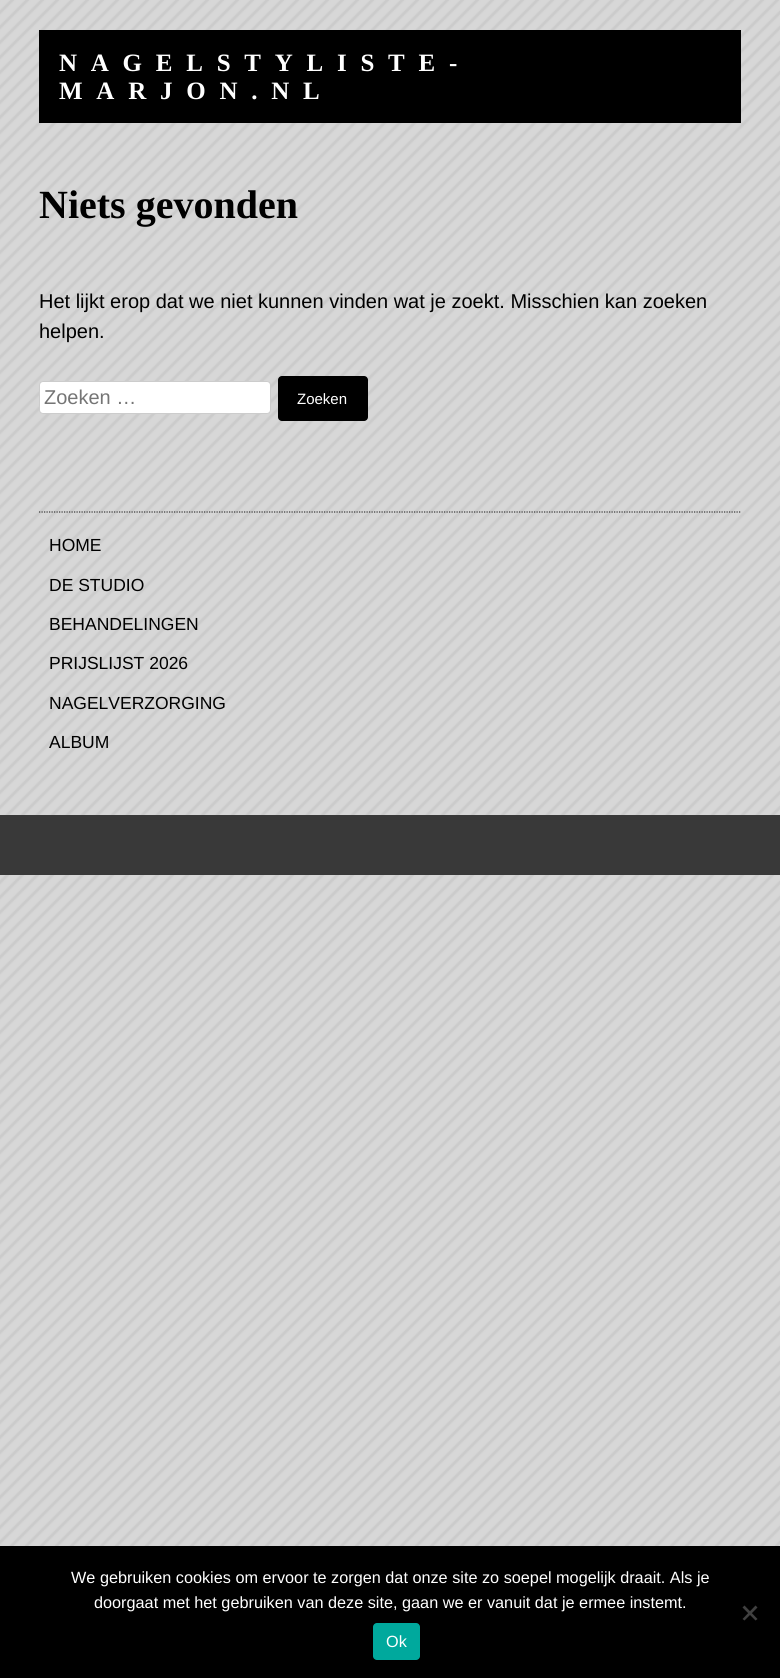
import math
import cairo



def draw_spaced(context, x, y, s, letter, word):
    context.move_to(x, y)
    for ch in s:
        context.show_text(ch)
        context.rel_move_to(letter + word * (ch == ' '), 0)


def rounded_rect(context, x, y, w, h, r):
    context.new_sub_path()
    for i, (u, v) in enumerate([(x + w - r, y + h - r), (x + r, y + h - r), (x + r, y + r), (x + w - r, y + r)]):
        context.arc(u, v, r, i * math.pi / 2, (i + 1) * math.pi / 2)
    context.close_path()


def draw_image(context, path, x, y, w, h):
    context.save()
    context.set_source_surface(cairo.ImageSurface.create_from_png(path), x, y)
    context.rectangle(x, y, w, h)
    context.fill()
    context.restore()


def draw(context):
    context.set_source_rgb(1, 1, 1)
    context.paint()
    draw_image(context, "images/1.png", 0, 0, 780, 1546)
    context.set_source_rgb(0, 0, 0)
    context.rectangle(39, 30, 702, 93)
    context.fill()
    context.set_source_rgb(1, 1, 1)
    rounded_rect(context, 39.5, 381.5, 231, 32, 3.5)
    context.fill_preserve()
    context.set_source_rgb(204 / 255, 204 / 255, 204 / 255)
    context.set_line_width(1)
    context.stroke()
    context.set_source_rgb(0, 0, 0)
    rounded_rect(context, 278, 376, 90, 45, 4)
    context.fill()
    context.new_path()
    context.move_to(39, 512)
    context.line_to(741, 512)
    context.set_source_rgb(57 / 255, 57 / 255, 57 / 255)
    context.set_line_width(1.2)
    context.set_dash([1.25, 1.25])
    context.stroke()
    context.rectangle(0, 815, 780, 60)
    context.fill()
    context.set_source_rgb(0, 0, 0)
    context.rectangle(0, 1546, 780, 132)
    context.fill()
    context.set_source_rgb(64 / 255, 64 / 255, 64 / 255)
    context.new_path()
    context.move_to(755.5, 1605.5)
    context.line_to(757.5, 1607.5)
    context.line_to(744.5, 1620.5)
    context.line_to(742.5, 1619)
    context.close_path()
    context.fill()
    context.new_path()
    context.move_to(742.5, 1607.5)
    context.line_to(744.5, 1605.5)
    context.line_to(757.5, 1619)
    context.line_to(755.5, 1620.5)
    context.close_path()
    context.fill()
    context.set_source_rgb(0, 169 / 255, 157 / 255)
    rounded_rect(context, 373, 1623, 47, 37, 4)
    context.fill()
    context.select_font_face("Liberation Serif", cairo.FontSlant.NORMAL, cairo.FontWeight.BOLD)
    context.set_font_size(25)
    context.set_source_rgb(1, 1, 1)
    draw_spaced(context, 59, 71, "NAGELSTYLISTE-", 13.75, 0)
    draw_spaced(context, 59, 99, "MARJON.NL", 13.75, 0)
    context.set_font_size(40)
    context.set_source_rgb(0, 0, 0)
    context.move_to(39, 218)
    context.show_text("Niets gevonden")
    context.select_font_face("Liberation Sans")
    context.set_font_size(20)
    context.move_to(39, 308)
    context.show_text("Het lijkt erop dat we niet kunnen vinden wat je zoekt. Misschien kan zoeken")
    context.move_to(39, 338)
    context.show_text("helpen.")
    context.set_source_rgb(117 / 255, 117 / 255, 117 / 255)
    context.move_to(44, 404)
    context.show_text("Zoeken …")
    context.set_font_size(15)
    context.set_source_rgb(1, 1, 1)
    context.move_to(297, 404)
    context.show_text("Zoeken")
    context.set_font_size(17.5)
    context.set_source_rgb(0, 0, 0)
    context.move_to(49, 551)
    context.show_text("HOME")
    context.move_to(49, 591)
    context.show_text("DE STUDIO")
    context.move_to(49, 630)
    context.show_text("BEHANDELINGEN")
    context.move_to(49, 669)
    context.show_text("PRIJSLIJST 2026")
    context.move_to(49, 709)
    context.show_text("NAGELVERZORGING")
    context.move_to(49, 748)
    context.show_text("ALBUM")
    context.set_font_size(16.25)
    context.set_source_rgb(1, 1, 1)
    context.move_to(71, 1583)
    context.show_text("We gebruiken cookies om ervoor te zorgen dat onze site zo soepel mogelijk draait. Als je")
    context.move_to(94, 1608)
    context.show_text("doorgaat met het gebruiken van deze site, gaan we er vanuit dat je ermee instemt.")
    context.move_to(386, 1647)
    context.show_text("Ok")


surface = cairo.ImageSurface(cairo.Format.RGB24, 780, 1678)
context = cairo.Context(surface)
options = cairo.FontOptions()
options.set_hint_metrics(cairo.HintMetrics.OFF)
options.set_hint_style(cairo.HintStyle.NONE)
context.set_font_options(options)
context.set_miter_limit(4)
draw(context)
surface.write_to_png("out.png")
